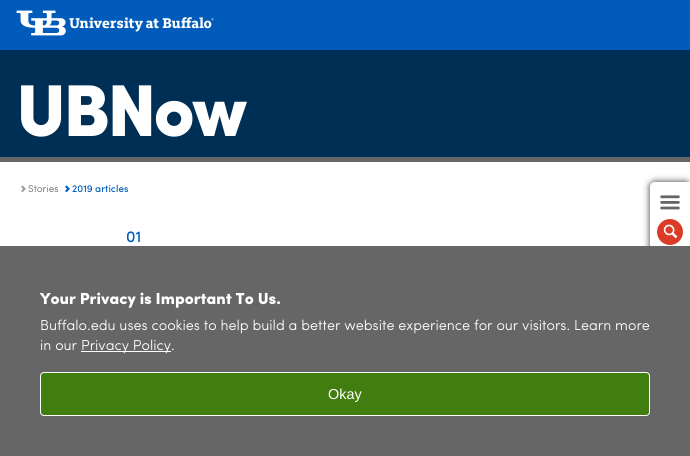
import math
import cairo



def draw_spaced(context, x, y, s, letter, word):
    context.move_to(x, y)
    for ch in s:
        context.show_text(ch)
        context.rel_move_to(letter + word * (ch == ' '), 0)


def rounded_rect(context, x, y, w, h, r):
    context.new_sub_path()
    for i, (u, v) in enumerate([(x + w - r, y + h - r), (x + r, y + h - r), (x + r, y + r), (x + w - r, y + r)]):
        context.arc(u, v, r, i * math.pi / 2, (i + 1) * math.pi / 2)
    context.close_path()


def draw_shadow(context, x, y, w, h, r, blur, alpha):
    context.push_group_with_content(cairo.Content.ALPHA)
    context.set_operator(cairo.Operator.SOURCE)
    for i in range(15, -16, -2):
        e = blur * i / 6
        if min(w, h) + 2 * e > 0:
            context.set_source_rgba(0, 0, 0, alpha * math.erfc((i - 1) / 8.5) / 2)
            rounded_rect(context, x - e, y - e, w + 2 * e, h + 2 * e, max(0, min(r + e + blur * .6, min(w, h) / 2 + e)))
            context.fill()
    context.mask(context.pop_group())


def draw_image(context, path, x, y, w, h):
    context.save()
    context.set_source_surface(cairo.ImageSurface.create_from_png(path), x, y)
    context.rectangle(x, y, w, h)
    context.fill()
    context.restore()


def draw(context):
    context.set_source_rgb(1, 1, 1)
    context.paint()
    context.set_source_rgb(0, 91 / 255, 187 / 255)
    context.rectangle(0, 0, 690, 50)
    context.fill()
    draw_image(context, "images/1.png", 16, 10, 198, 26)
    context.set_source_rgb(0, 47 / 255, 86 / 255)
    context.rectangle(0, 50, 690, 107)
    context.fill()
    context.set_source_rgb(102 / 255, 102 / 255, 102 / 255)
    context.rectangle(0, 157, 690, 5)
    context.fill()
    context.set_source_rgb(51 / 255, 51 / 255, 51 / 255)
    draw_shadow(context, 650, 182, 40, 72, 5, 3.5, 1)
    context.set_source_rgb(1, 1, 1)
    context.new_path()
    context.move_to(655, 182)
    context.line_to(690, 182)
    context.line_to(690, 254)
    context.line_to(655, 254)
    context.curve_to(652, 254, 650, 252, 650, 249)
    context.line_to(650, 187)
    context.curve_to(650, 184, 652, 182, 655, 182)
    context.close_path()
    context.fill()
    draw_image(context, "images/2.png", 660, 195, 20, 15)
    context.set_source_rgb(218 / 255, 60 / 255, 40 / 255)
    context.arc(670, 232, 13, 0, 2 * math.pi)
    context.fill()
    draw_image(context, "images/3.png", 663, 224, 15, 14)
    draw_image(context, "images/4.png", 21, 185, 5, 8)
    draw_image(context, "images/5.png", 65, 185, 5, 8)
    context.set_source_rgb(102 / 255, 102 / 255, 102 / 255)
    context.rectangle(0, 246, 690, 210)
    context.fill()
    context.set_source_rgb(1, 1, 1)
    context.rectangle(81, 351, 90, 1)
    context.fill()
    context.set_source_rgb(66 / 255, 125 / 255, 16 / 255)
    rounded_rect(context, 40.5, 372.5, 609, 43, 3.5)
    context.fill_preserve()
    context.set_source_rgb(1, 1, 1)
    context.set_line_width(1)
    context.stroke()
    context.select_font_face("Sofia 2")
    context.set_font_size(73.5)
    draw_spaced(context, 16, 136, "UBNow", -3.25, 0)
    context.select_font_face("Sofia")
    context.set_font_size(10)
    context.set_source_rgb(102 / 255, 102 / 255, 102 / 255)
    context.move_to(28, 192)
    context.show_text("Stories")
    context.select_font_face("Sofia Medium")
    context.set_source_rgb(0, 91 / 255, 187 / 255)
    context.move_to(72, 192)
    context.show_text("2019 articles")
    context.set_font_size(16)
    context.move_to(126, 242)
    context.show_text("01")
    context.select_font_face("Sofia 2")
    context.set_source_rgb(1, 1, 1)
    context.move_to(40, 304)
    context.show_text("Your Privacy is Important To Us.")
    context.select_font_face("Sofia")
    context.set_font_size(14.4)
    context.move_to(40, 330)
    context.show_text("Buffalo.edu uses cookies to help build a better website experience for our visitors. Learn more")
    context.move_to(40, 350)
    context.show_text("in our")
    context.move_to(81, 350)
    context.show_text("Privacy Policy.")
    context.select_font_face("Liberation Sans")
    context.move_to(328, 399)
    context.show_text("Okay")


surface = cairo.ImageSurface(cairo.Format.RGB24, 690, 456)
context = cairo.Context(surface)
options = cairo.FontOptions()
options.set_hint_metrics(cairo.HintMetrics.OFF)
options.set_hint_style(cairo.HintStyle.NONE)
context.set_font_options(options)
context.set_miter_limit(4)
draw(context)
surface.write_to_png("out.png")
